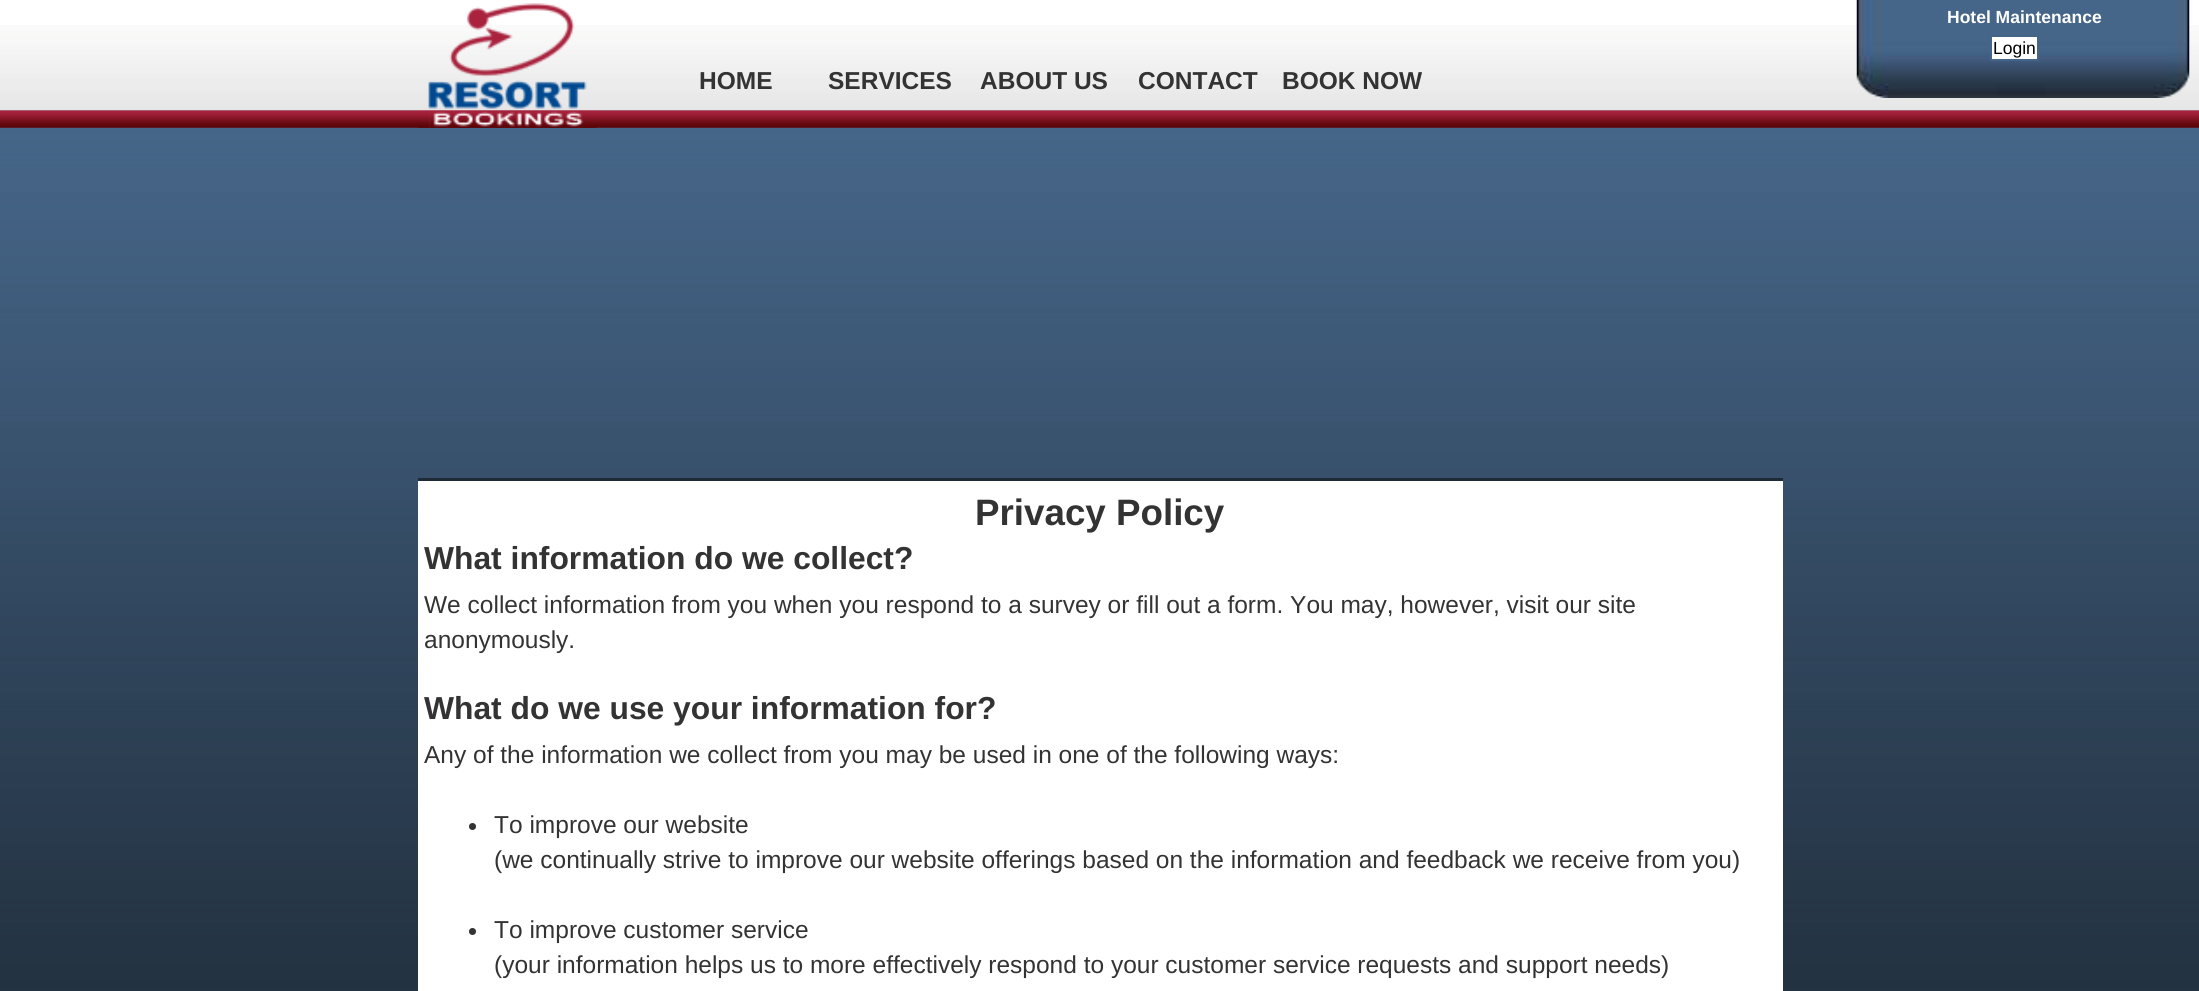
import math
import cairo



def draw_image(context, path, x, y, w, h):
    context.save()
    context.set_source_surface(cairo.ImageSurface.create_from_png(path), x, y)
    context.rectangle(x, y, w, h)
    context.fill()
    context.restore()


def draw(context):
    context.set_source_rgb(1, 1, 1)
    context.paint()
    draw_image(context, "images/1.png", 0, 110, 2199, 881)
    draw_image(context, "images/5.png", 0, 110, 2199, 18)
    draw_image(context, "images/6.png", 418, 110, 179, 18)
    draw_image(context, "images/3.png", 0, 25, 2199, 86)
    draw_image(context, "images/2.png", 1856, 0, 334, 98)
    context.set_source_rgb(1, 1, 1)
    context.rectangle(1991, 36, 47, 24)
    context.fill_preserve()
    context.set_source_rgb(69 / 255, 101 / 255, 136 / 255)
    context.stroke()
    draw_image(context, "images/4.png", 428, 3, 159, 106)
    context.set_source_rgb(30 / 255, 42 / 255, 54 / 255)
    context.rectangle(418, 478, 1365, 3)
    context.fill()
    context.set_source_rgb(1, 1, 1)
    context.rectangle(418, 481, 1365, 510)
    context.fill()
    context.set_source_rgb(51 / 255, 51 / 255, 51 / 255)
    context.arc(472.5, 826.5, 3.5, 0, 2 * math.pi)
    context.fill()
    context.arc(472.5, 931.5, 3.5, 0, 2 * math.pi)
    context.fill()
    context.select_font_face("Liberation Sans", cairo.FontSlant.NORMAL, cairo.FontWeight.BOLD)
    context.set_font_size(17.5)
    context.set_source_rgb(1, 1, 1)
    context.move_to(1947, 23)
    context.show_text("Hotel Maintenance")
    context.select_font_face("Liberation Sans")
    context.set_source_rgb(0, 0, 0)
    context.move_to(1993, 54)
    context.show_text("Login")
    context.select_font_face("Liberation Sans", cairo.FontSlant.NORMAL, cairo.FontWeight.BOLD)
    context.set_font_size(24.5)
    context.set_source_rgb(51 / 255, 51 / 255, 51 / 255)
    context.move_to(699, 89)
    context.show_text("HOME")
    context.move_to(828, 89)
    context.show_text("SERVICES")
    context.move_to(980, 89)
    context.show_text("ABOUT US")
    context.move_to(1138, 89)
    context.show_text("CONTACT")
    context.move_to(1282, 89)
    context.show_text("BOOK NOW")
    context.set_font_size(36.75)
    context.move_to(975, 525)
    context.show_text("Privacy Policy")
    context.set_font_size(31.8)
    context.move_to(424, 569)
    context.show_text("What information do we collect?")
    context.select_font_face("Liberation Sans")
    context.set_font_size(24.5)
    context.move_to(424, 613)
    context.show_text("We collect information from you when you respond to a survey or fill out a form. You may, however, visit our site")
    context.move_to(424, 648)
    context.show_text("anonymously.")
    context.select_font_face("Liberation Sans", cairo.FontSlant.NORMAL, cairo.FontWeight.BOLD)
    context.set_font_size(31.8)
    context.move_to(424, 719)
    context.show_text("What do we use your information for?")
    context.select_font_face("Liberation Sans")
    context.set_font_size(24.5)
    context.move_to(424, 763)
    context.show_text("Any of the information we collect from you may be used in one of the following ways:")
    context.move_to(494, 833)
    context.show_text("To improve our website")
    context.move_to(494, 868)
    context.show_text("(we continually strive to improve our website offerings based on the information and feedback we receive from you)")
    context.move_to(494, 938)
    context.show_text("To improve customer service")
    context.move_to(494, 973)
    context.show_text("(your information helps us to more effectively respond to your customer service requests and support needs)")


surface = cairo.ImageSurface(cairo.Format.RGB24, 2199, 991)
context = cairo.Context(surface)
options = cairo.FontOptions()
options.set_hint_metrics(cairo.HintMetrics.OFF)
options.set_hint_style(cairo.HintStyle.NONE)
context.set_font_options(options)
context.set_miter_limit(4)
draw(context)
surface.write_to_png("out.png")
